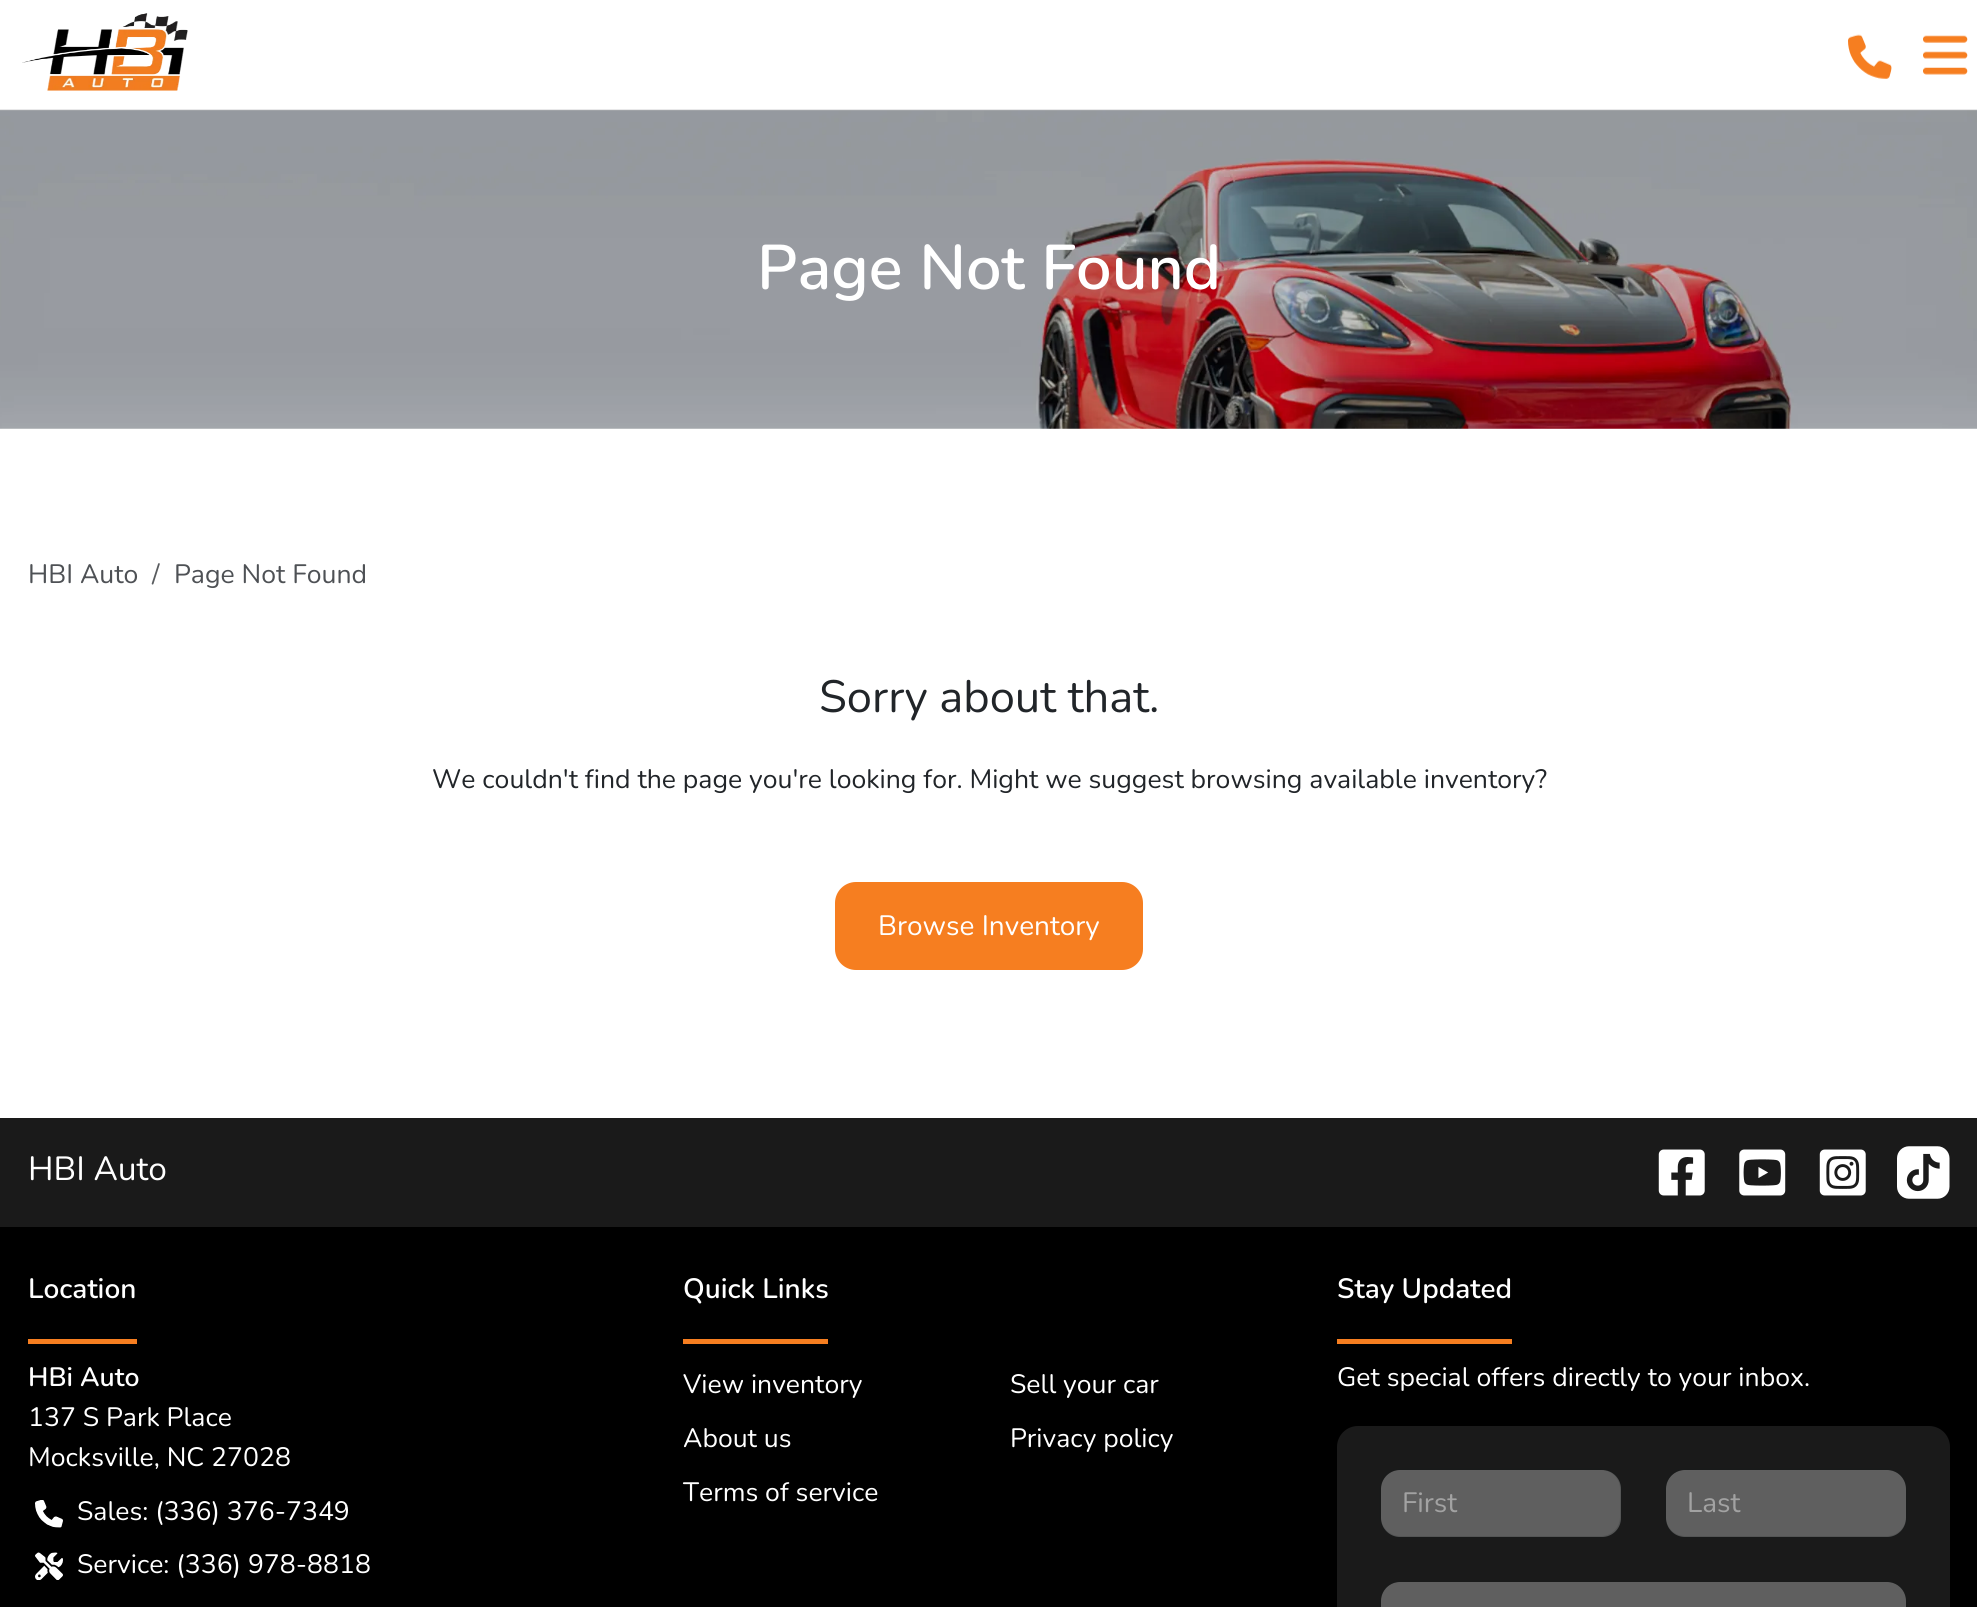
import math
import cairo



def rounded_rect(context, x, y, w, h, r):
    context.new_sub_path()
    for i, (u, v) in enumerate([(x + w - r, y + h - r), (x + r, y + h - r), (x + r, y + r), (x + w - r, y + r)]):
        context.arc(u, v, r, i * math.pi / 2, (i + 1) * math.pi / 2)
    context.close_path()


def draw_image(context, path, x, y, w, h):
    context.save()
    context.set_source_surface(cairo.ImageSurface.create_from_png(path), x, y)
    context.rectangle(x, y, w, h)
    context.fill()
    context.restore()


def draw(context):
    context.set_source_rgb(1, 1, 1)
    context.paint()
    draw_image(context, "images/4.png", 0, 110, 1977, 319)
    context.set_source_rgba(24 / 255, 28 / 255, 33 / 255, 0.1)
    context.rectangle(0, 109, 1977, 2)
    context.fill()
    draw_image(context, "images/1.png", 22, 13, 166, 78)
    draw_image(context, "images/2.png", 1848, 34, 44, 45)
    draw_image(context, "images/3.png", 1923, 35, 45, 40)
    context.set_source_rgb(246 / 255, 126 / 255, 32 / 255)
    rounded_rect(context, 836, 883, 306, 86, 20)
    context.fill_preserve()
    context.stroke()
    context.set_source_rgb(0, 0, 0)
    context.rectangle(0, 1227, 1977, 380)
    context.fill()
    context.set_source_rgb(26 / 255, 26 / 255, 26 / 255)
    context.rectangle(0, 1118, 1977, 109)
    context.fill()
    draw_image(context, "images/5.png", 1658, 1149, 47, 47)
    draw_image(context, "images/6.png", 1739, 1149, 47, 47)
    draw_image(context, "images/7.png", 1819, 1149, 47, 47)
    draw_image(context, "images/8.png", 1897, 1146, 53, 53)
    context.set_source_rgb(246 / 255, 126 / 255, 32 / 255)
    context.rectangle(28, 1339, 109, 5)
    context.fill()
    draw_image(context, "images/9.png", 35, 1500, 28, 28)
    draw_image(context, "images/10.png", 35, 1552, 28, 28)
    context.rectangle(683, 1339, 145, 5)
    context.fill()
    context.rectangle(1337, 1339, 175, 5)
    context.fill()
    context.set_source_rgb(26 / 255, 26 / 255, 26 / 255)
    rounded_rect(context, 1337, 1426, 613, 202, 21)
    context.fill()
    context.set_source_rgb(95 / 255, 95 / 255, 95 / 255)
    rounded_rect(context, 1381, 1470, 240, 67, 19)
    context.fill()
    rounded_rect(context, 1380, 1469, 241, 68, 20)
    context.set_source_rgba(24 / 255, 28 / 255, 33 / 255, 0.15)
    context.stroke()
    context.set_source_rgb(95 / 255, 95 / 255, 95 / 255)
    rounded_rect(context, 1666, 1470, 240, 67, 19)
    context.fill()
    rounded_rect(context, 1665, 1469, 242, 68, 20)
    context.set_source_rgba(24 / 255, 28 / 255, 33 / 255, 0.15)
    context.stroke()
    context.set_source_rgb(95 / 255, 95 / 255, 95 / 255)
    rounded_rect(context, 1381, 1582, 525, 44, 19)
    context.fill()
    rounded_rect(context, 1380, 1581, 527, 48, 20)
    context.set_source_rgba(24 / 255, 28 / 255, 33 / 255, 0.15)
    context.stroke()
    context.select_font_face("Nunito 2 ExtraLight")
    context.set_font_size(63)
    context.set_source_rgb(1, 1, 1)
    context.move_to(757, 289)
    context.show_text("Page Not Found")
    context.select_font_face("Nunito ExtraLight")
    context.set_font_size(26.6)
    context.set_source_rgb(78 / 255, 81 / 255, 85 / 255)
    context.move_to(28, 583)
    context.show_text("HBI Auto")
    context.set_source_rgb(89 / 255, 92 / 255, 95 / 255)
    context.move_to(152, 583)
    context.show_text("/")
    context.set_source_rgb(78 / 255, 81 / 255, 85 / 255)
    context.move_to(174, 583)
    context.show_text("Page Not Found")
    context.set_font_size(45.25)
    context.set_source_rgb(33 / 255, 37 / 255, 41 / 255)
    context.move_to(819, 712)
    context.show_text("Sorry about that.")
    context.set_font_size(26.6)
    context.move_to(432, 788)
    context.show_text("We couldn't find the page you're looking for. Might we suggest browsing available inventory?")
    context.set_font_size(28)
    context.set_source_rgb(1, 1, 1)
    context.move_to(878, 935)
    context.show_text("Browse Inventory")
    context.set_font_size(33.5)
    context.move_to(28, 1180)
    context.show_text("HBI Auto")
    context.select_font_face("Nunito 2 ExtraLight")
    context.set_font_size(28)
    context.move_to(28, 1298)
    context.show_text("Location")
    context.set_font_size(26.6)
    context.move_to(28, 1386)
    context.show_text("HBi Auto")
    context.select_font_face("Nunito ExtraLight")
    context.move_to(28, 1426)
    context.show_text("137 S Park Place")
    context.move_to(28, 1466)
    context.show_text("Mocksville, NC 27028")
    context.move_to(77, 1520)
    context.show_text("Sales: (336) 376-7349")
    context.move_to(77, 1573)
    context.show_text("Service: (336) 978-8818")
    context.select_font_face("Nunito 2 ExtraLight")
    context.set_font_size(28)
    context.move_to(683, 1298)
    context.show_text("Quick Links")
    context.select_font_face("Nunito ExtraLight")
    context.set_font_size(26.6)
    context.move_to(683, 1393)
    context.show_text("View inventory")
    context.move_to(1010, 1393)
    context.show_text("Sell your car")
    context.move_to(683, 1447)
    context.show_text("About us")
    context.move_to(1010, 1447)
    context.show_text("Privacy policy")
    context.move_to(683, 1501)
    context.show_text("Terms of service")
    context.select_font_face("Nunito 2 ExtraLight")
    context.set_font_size(28)
    context.move_to(1337, 1298)
    context.show_text("Stay Updated")
    context.select_font_face("Nunito ExtraLight")
    context.set_font_size(26.6)
    context.move_to(1337, 1386)
    context.show_text("Get special offers directly to your inbox.")
    context.set_font_size(28)
    context.set_source_rgb(162 / 255, 162 / 255, 162 / 255)
    context.move_to(1402, 1512)
    context.show_text("First")
    context.move_to(1687, 1512)
    context.show_text("Last")


surface = cairo.ImageSurface(cairo.Format.RGB24, 1977, 1607)
context = cairo.Context(surface)
options = cairo.FontOptions()
options.set_hint_metrics(cairo.HintMetrics.OFF)
options.set_hint_style(cairo.HintStyle.NONE)
context.set_font_options(options)
context.set_miter_limit(4)
draw(context)
surface.write_to_png("out.png")
